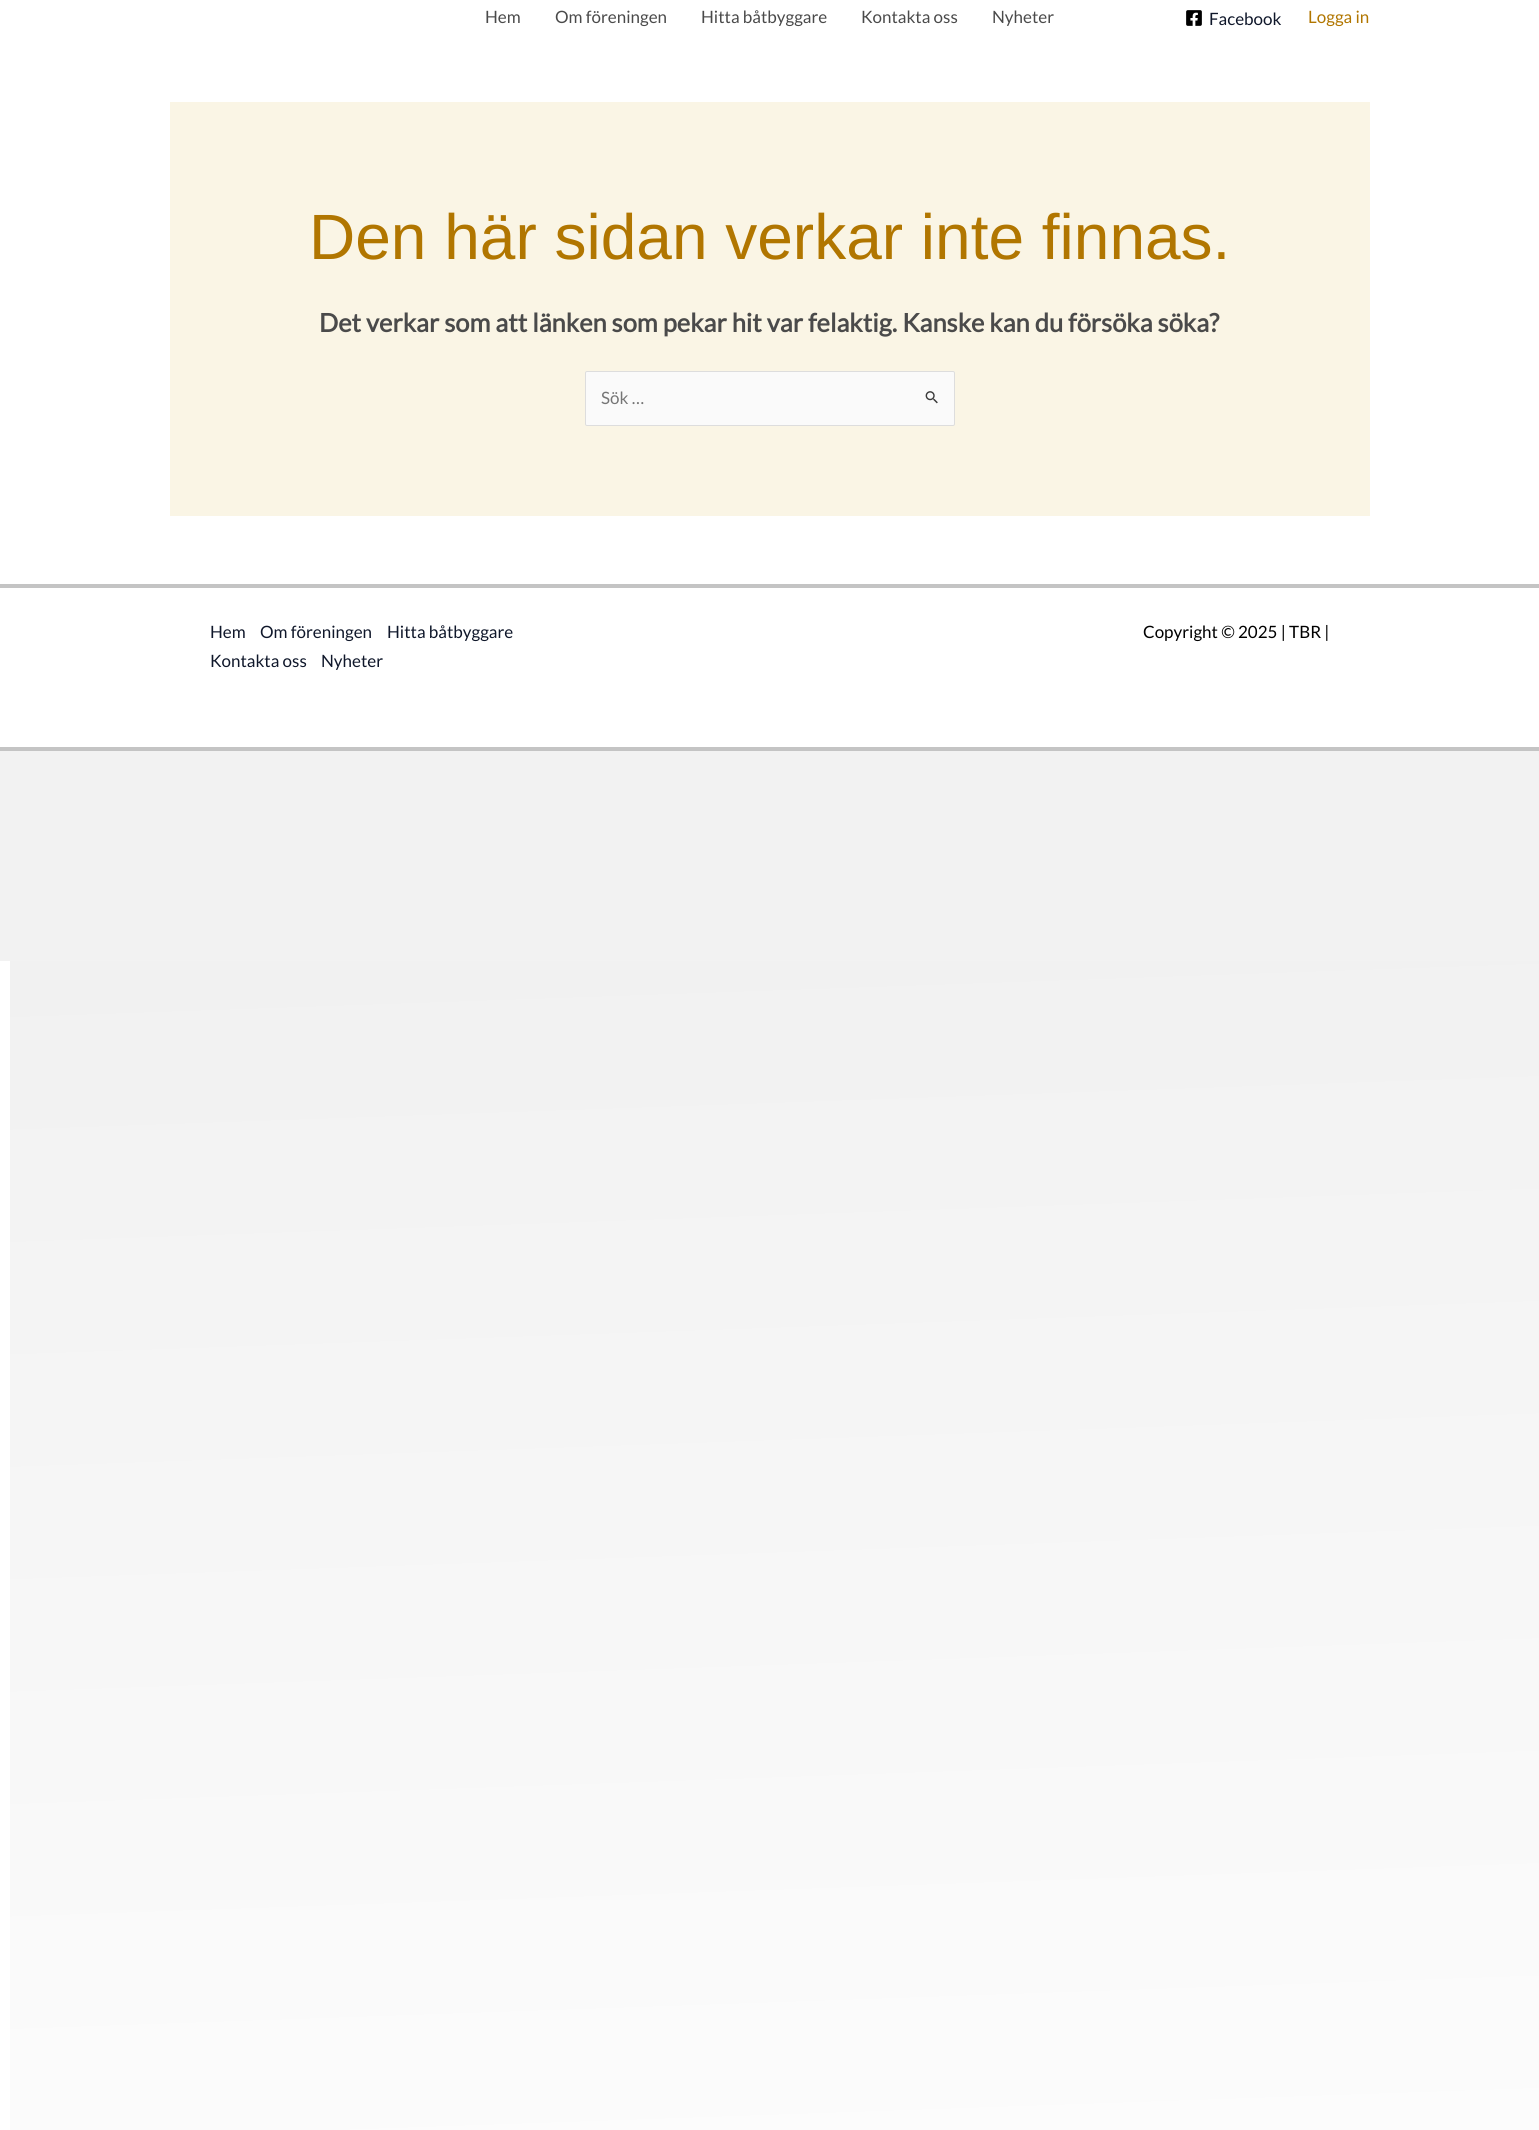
import math
import cairo



def rounded_rect(context, x, y, w, h, r):
    context.new_sub_path()
    for i, (u, v) in enumerate([(x + w - r, y + h - r), (x + r, y + h - r), (x + r, y + r), (x + w - r, y + r)]):
        context.arc(u, v, r, i * math.pi / 2, (i + 1) * math.pi / 2)
    context.close_path()


def draw_image(context, path, x, y, w, h):
    context.save()
    context.set_source_surface(cairo.ImageSurface.create_from_png(path), x, y)
    context.rectangle(x, y, w, h)
    context.fill()
    context.restore()


def draw(context):
    context.set_source_rgb(1, 1, 1)
    context.paint()
    draw_image(context, "images/1.png", 1186, 10, 16, 16)
    context.set_source_rgb(250 / 255, 245 / 255, 229 / 255)
    context.rectangle(170, 102, 1200, 414)
    context.fill()
    context.set_source_rgb(250 / 255, 250 / 255, 250 / 255)
    rounded_rect(context, 585.5, 371.5, 369, 54, 1.5)
    context.fill_preserve()
    context.set_source_rgb(221 / 255, 221 / 255, 221 / 255)
    context.set_line_width(1)
    context.stroke()
    draw_image(context, "images/2.png", 925, 391, 13, 13)
    context.set_source_rgb(196 / 255, 196 / 255, 196 / 255)
    context.rectangle(0, 584, 1539, 4)
    context.fill()
    context.set_source_rgb(242 / 255, 242 / 255, 242 / 255)
    context.rectangle(0, 751, 1539, 210)
    context.fill()
    context.set_source_rgb(196 / 255, 196 / 255, 196 / 255)
    context.rectangle(0, 747, 1539, 4)
    context.fill()
    gradient = cairo.LinearGradient(752, 935, 807, 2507)
    gradient.add_color_stop_rgba(0, 241 / 255, 241 / 255, 241 / 255, 1)
    gradient.add_color_stop_rgba(1, 1, 1, 1, 1)
    context.set_source(gradient)
    context.rectangle(10, 961, 1529, 1169)
    context.fill()
    context.select_font_face("Lato")
    context.set_font_size(17)
    context.set_source_rgb(74 / 255, 74 / 255, 74 / 255)
    context.move_to(485, 23)
    context.show_text("Hem")
    context.move_to(555, 23)
    context.show_text("Om föreningen")
    context.move_to(701, 23)
    context.show_text("Hitta båtbyggare")
    context.move_to(861, 23)
    context.show_text("Kontakta oss")
    context.move_to(992, 23)
    context.show_text("Nyheter")
    context.set_source_rgb(15 / 255, 23 / 255, 42 / 255)
    context.move_to(1209, 25)
    context.show_text("Facebook")
    context.set_source_rgb(177 / 255, 118 / 255, 0)
    context.move_to(1308, 23)
    context.show_text("Logga in")
    context.select_font_face("Liberation Sans")
    context.set_font_size(64)
    context.move_to(309, 259)
    context.show_text("Den här sidan verkar inte finnas.")
    context.select_font_face("Lato", cairo.FontSlant.NORMAL, cairo.FontWeight.BOLD)
    context.set_font_size(25.5)
    context.set_source_rgb(74 / 255, 74 / 255, 74 / 255)
    context.move_to(319, 332)
    context.show_text("Det verkar som att länken som pekar hit var felaktig. Kanske kan du försöka söka?")
    context.select_font_face("Lato")
    context.set_font_size(17)
    context.set_source_rgb(117 / 255, 117 / 255, 117 / 255)
    context.move_to(601, 404)
    context.show_text("Sök …")
    context.set_source_rgb(15 / 255, 23 / 255, 42 / 255)
    context.move_to(210, 638)
    context.show_text("Hem")
    context.move_to(260, 638)
    context.show_text("Om föreningen")
    context.move_to(387, 638)
    context.show_text("Hitta båtbyggare")
    context.move_to(210, 667)
    context.show_text("Kontakta oss")
    context.move_to(321, 667)
    context.show_text("Nyheter")
    context.set_source_rgb(0, 0, 0)
    context.move_to(1143, 638)
    context.show_text("Copyright © 2025 | TBR |")


surface = cairo.ImageSurface(cairo.Format.RGB24, 1539, 2130)
context = cairo.Context(surface)
options = cairo.FontOptions()
options.set_hint_metrics(cairo.HintMetrics.OFF)
options.set_hint_style(cairo.HintStyle.NONE)
context.set_font_options(options)
context.set_miter_limit(4)
draw(context)
surface.write_to_png("out.png")
